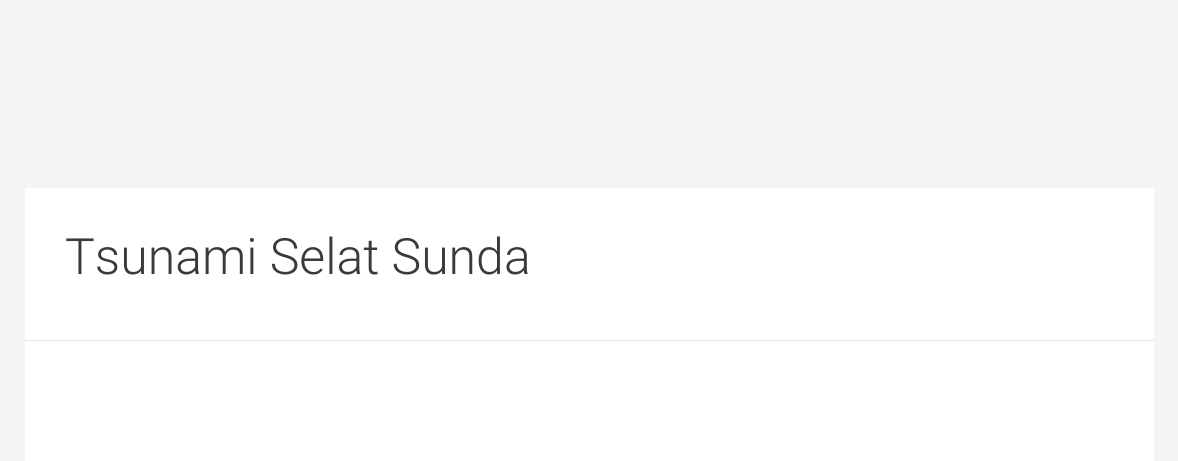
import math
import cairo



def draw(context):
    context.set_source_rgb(245 / 255, 245 / 255, 245 / 255)
    context.paint()
    context.set_source_rgb(1, 1, 1)
    context.rectangle(25, 188, 1129, 152)
    context.fill()
    context.set_source_rgb(229 / 255, 229 / 255, 229 / 255)
    context.rectangle(25, 340, 1129, 1)
    context.fill()
    context.set_source_rgb(1, 1, 1)
    context.rectangle(25, 341, 1129, 120)
    context.fill()
    context.select_font_face("Roboto Light")
    context.set_font_size(50)
    context.set_source_rgb(58 / 255, 58 / 255, 58 / 255)
    context.move_to(65, 274)
    context.show_text("Tsunami Selat Sunda")


surface = cairo.ImageSurface(cairo.Format.RGB24, 1178, 461)
context = cairo.Context(surface)
options = cairo.FontOptions()
options.set_hint_metrics(cairo.HintMetrics.OFF)
options.set_hint_style(cairo.HintStyle.NONE)
context.set_font_options(options)
context.set_miter_limit(4)
draw(context)
surface.write_to_png("out.png")
